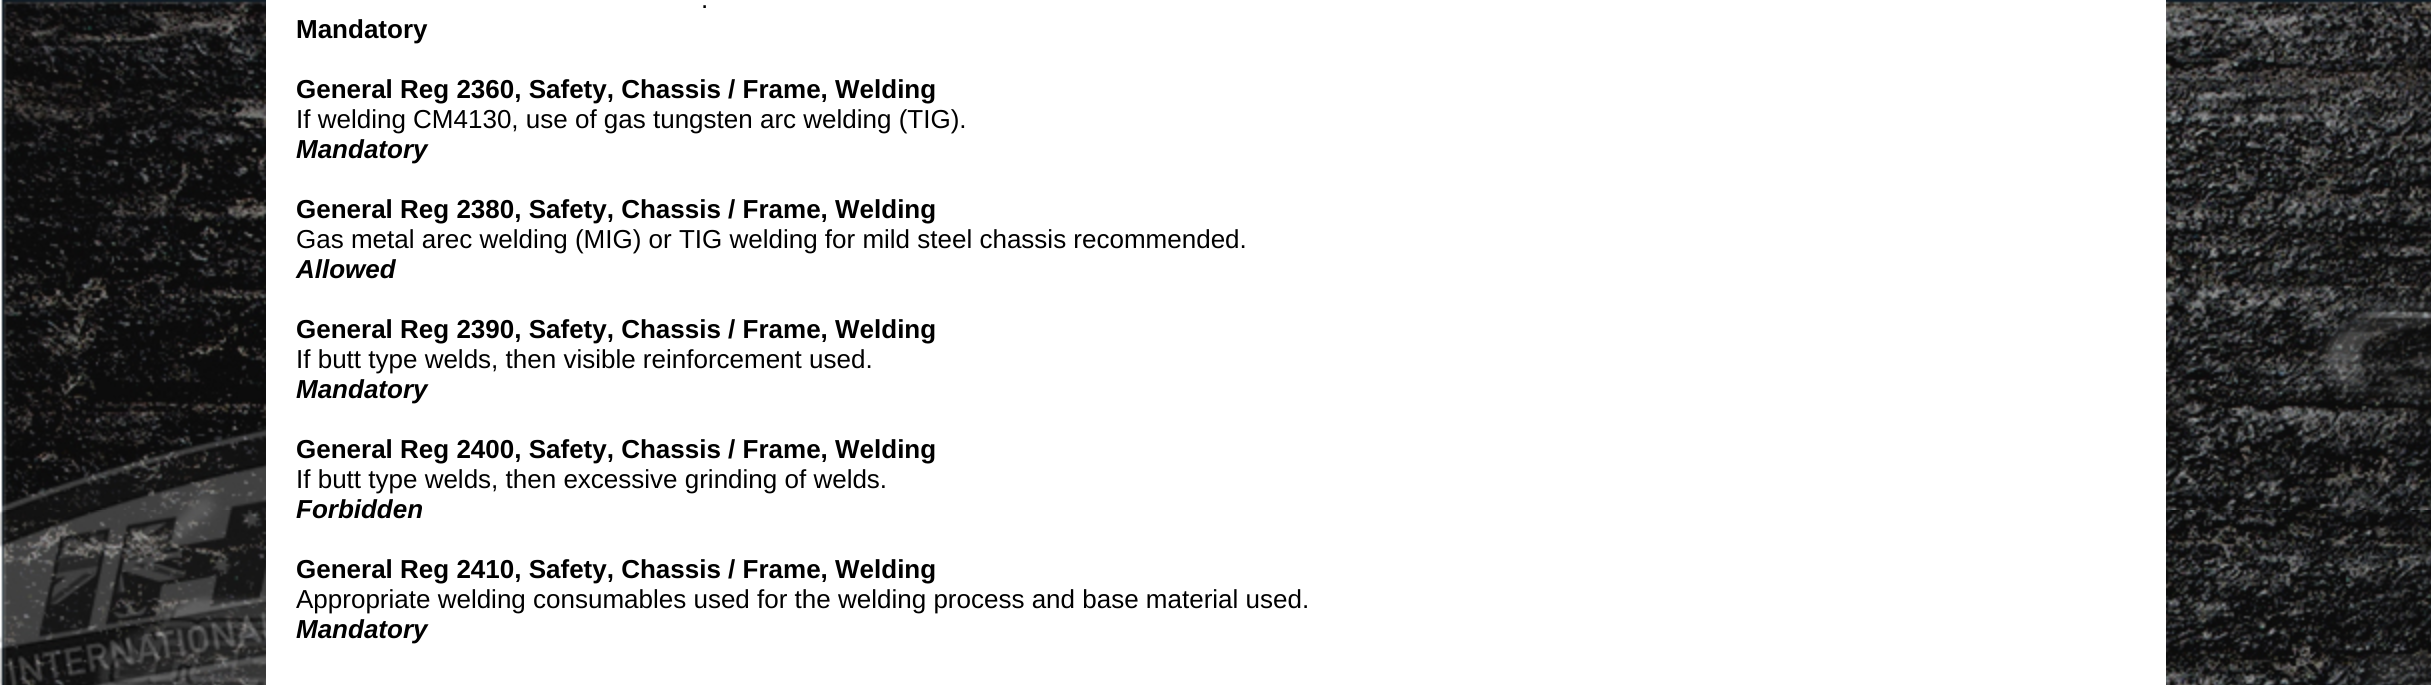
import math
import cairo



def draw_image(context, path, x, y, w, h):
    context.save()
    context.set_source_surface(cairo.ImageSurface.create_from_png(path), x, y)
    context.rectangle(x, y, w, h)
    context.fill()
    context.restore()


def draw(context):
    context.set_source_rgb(1, 1, 1)
    context.paint()
    draw_image(context, "images/1.png", 0, 0, 2431, 685)
    context.set_source_rgb(1, 1, 1)
    context.rectangle(266, 0, 1900, 685)
    context.fill()
    context.select_font_face("Liberation Sans")
    context.set_font_size(26)
    context.set_source_rgb(0, 0, 0)
    context.move_to(701, 8)
    context.show_text(".")
    context.select_font_face("Liberation Sans", cairo.FontSlant.NORMAL, cairo.FontWeight.BOLD)
    context.move_to(296, 38)
    context.show_text("Mandatory")
    context.move_to(296, 98)
    context.show_text("General Reg 2360, Safety, Chassis / Frame, Welding")
    context.select_font_face("Liberation Sans")
    context.move_to(296, 128)
    context.show_text("If welding CM4130, use of gas tungsten arc welding (TIG).")
    context.select_font_face("Liberation Sans", cairo.FontSlant.ITALIC, cairo.FontWeight.BOLD)
    context.move_to(296, 158)
    context.show_text("Mandatory")
    context.select_font_face("Liberation Sans", cairo.FontSlant.NORMAL, cairo.FontWeight.BOLD)
    context.move_to(296, 218)
    context.show_text("General Reg 2380, Safety, Chassis / Frame, Welding")
    context.select_font_face("Liberation Sans")
    context.move_to(296, 248)
    context.show_text("Gas metal arec welding (MIG) or TIG welding for mild steel chassis recommended.")
    context.select_font_face("Liberation Sans", cairo.FontSlant.ITALIC, cairo.FontWeight.BOLD)
    context.move_to(296, 278)
    context.show_text("Allowed")
    context.select_font_face("Liberation Sans", cairo.FontSlant.NORMAL, cairo.FontWeight.BOLD)
    context.move_to(296, 338)
    context.show_text("General Reg 2390, Safety, Chassis / Frame, Welding")
    context.select_font_face("Liberation Sans")
    context.move_to(296, 368)
    context.show_text("If butt type welds, then visible reinforcement used.")
    context.select_font_face("Liberation Sans", cairo.FontSlant.ITALIC, cairo.FontWeight.BOLD)
    context.move_to(296, 398)
    context.show_text("Mandatory")
    context.select_font_face("Liberation Sans", cairo.FontSlant.NORMAL, cairo.FontWeight.BOLD)
    context.move_to(296, 458)
    context.show_text("General Reg 2400, Safety, Chassis / Frame, Welding")
    context.select_font_face("Liberation Sans")
    context.move_to(296, 488)
    context.show_text("If butt type welds, then excessive grinding of welds.")
    context.select_font_face("Liberation Sans", cairo.FontSlant.ITALIC, cairo.FontWeight.BOLD)
    context.move_to(296, 518)
    context.show_text("Forbidden")
    context.select_font_face("Liberation Sans", cairo.FontSlant.NORMAL, cairo.FontWeight.BOLD)
    context.move_to(296, 578)
    context.show_text("General Reg 2410, Safety, Chassis / Frame, Welding")
    context.select_font_face("Liberation Sans")
    context.move_to(296, 608)
    context.show_text("Appropriate welding consumables used for the welding process and base material used.")
    context.select_font_face("Liberation Sans", cairo.FontSlant.ITALIC, cairo.FontWeight.BOLD)
    context.move_to(296, 638)
    context.show_text("Mandatory")


surface = cairo.ImageSurface(cairo.Format.RGB24, 2431, 685)
context = cairo.Context(surface)
options = cairo.FontOptions()
options.set_hint_metrics(cairo.HintMetrics.OFF)
options.set_hint_style(cairo.HintStyle.NONE)
context.set_font_options(options)
context.set_miter_limit(4)
draw(context)
surface.write_to_png("out.png")
